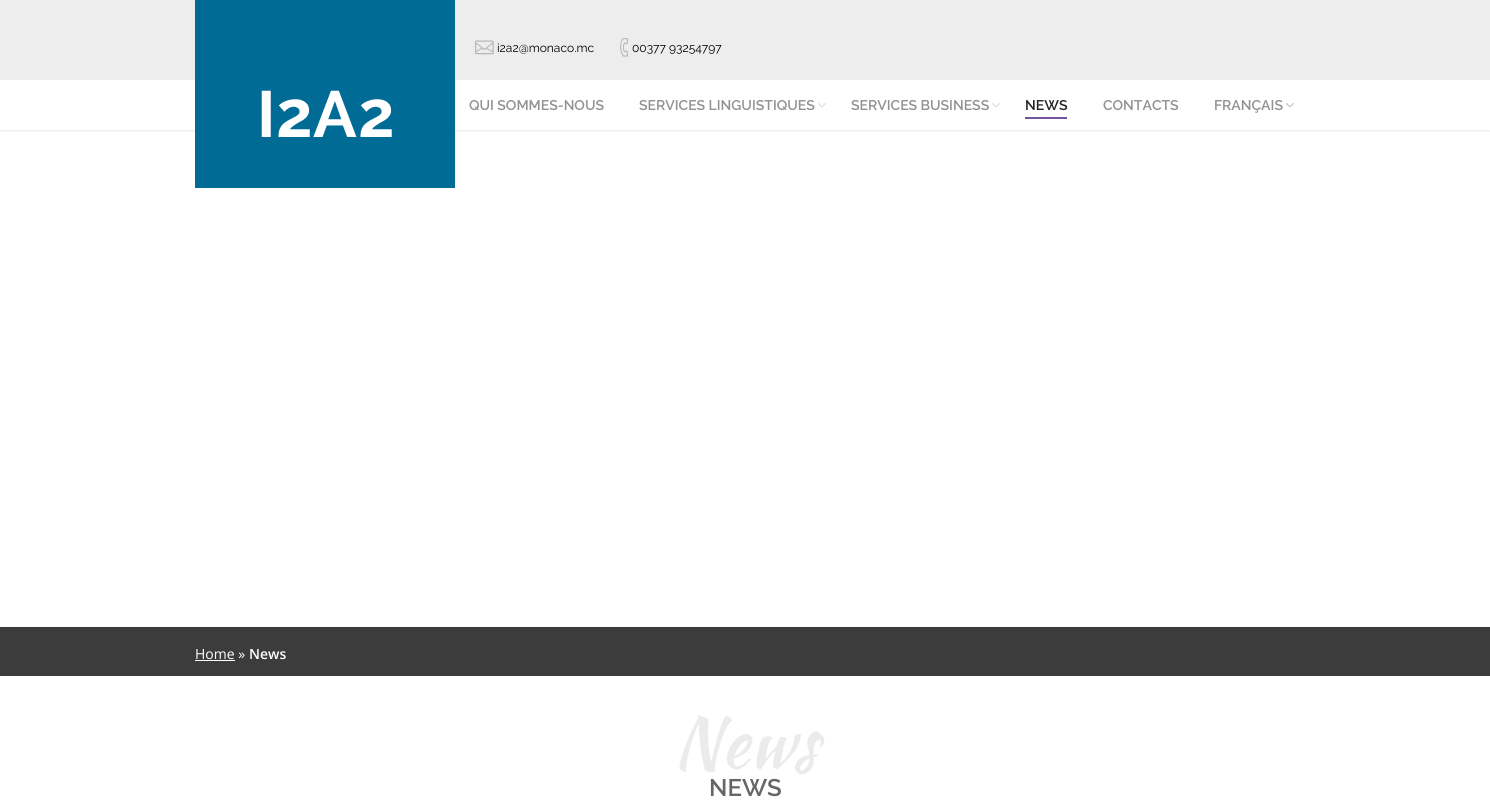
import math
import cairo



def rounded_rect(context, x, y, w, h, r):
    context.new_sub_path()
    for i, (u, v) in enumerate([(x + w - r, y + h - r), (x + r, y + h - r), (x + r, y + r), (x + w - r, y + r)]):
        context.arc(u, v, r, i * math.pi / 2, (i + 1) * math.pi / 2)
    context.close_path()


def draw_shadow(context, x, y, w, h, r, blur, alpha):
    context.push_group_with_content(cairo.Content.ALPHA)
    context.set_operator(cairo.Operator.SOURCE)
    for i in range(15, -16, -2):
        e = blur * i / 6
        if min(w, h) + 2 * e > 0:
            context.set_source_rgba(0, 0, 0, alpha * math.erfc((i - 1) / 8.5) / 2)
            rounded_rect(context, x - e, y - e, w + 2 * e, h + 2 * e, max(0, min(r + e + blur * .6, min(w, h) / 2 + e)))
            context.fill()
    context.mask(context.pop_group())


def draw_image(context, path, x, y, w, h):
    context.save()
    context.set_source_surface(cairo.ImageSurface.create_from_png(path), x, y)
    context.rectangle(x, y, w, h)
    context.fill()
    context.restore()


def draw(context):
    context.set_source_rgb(1, 1, 1)
    context.paint()
    context.save()
    context.rectangle(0, 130, 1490, 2)
    context.clip()
    context.set_source_rgb(0, 0, 0)
    draw_shadow(context, 0, 0, 1490, 130, 0, 2, 0.15)
    context.restore()
    context.set_source_rgb(237 / 255, 237 / 255, 237 / 255)
    context.rectangle(0, 0, 1490, 80)
    context.fill()
    draw_image(context, "images/1.png", 475, 40, 19, 15)
    draw_image(context, "images/2.png", 620, 38, 9, 19)
    context.set_source_rgb(0, 108 / 255, 149 / 255)
    context.rectangle(195, 0, 260, 188)
    context.fill()
    draw_image(context, "images/3.png", 261, 90, 131, 47)
    draw_image(context, "images/4.png", 818, 103, 8, 5)
    draw_image(context, "images/4.png", 992, 103, 8, 5)
    context.set_source_rgb(117 / 255, 83 / 255, 158 / 255)
    context.rectangle(1025, 117, 42, 2)
    context.fill()
    draw_image(context, "images/4.png", 1286, 103, 8, 5)
    draw_image(context, "images/5.png", 1286, 103, 8, 5)
    context.set_source_rgb(61 / 255, 60 / 255, 60 / 255)
    context.rectangle(0, 627, 1490, 49)
    context.fill()
    context.set_source_rgb(1, 1, 1)
    context.rectangle(195, 660, 40, 1)
    context.fill()
    context.select_font_face("Raleway")
    context.set_font_size(12)
    context.set_source_rgb(0, 0, 0)
    context.move_to(497, 52)
    context.show_text("i2a2@monaco.mc")
    context.move_to(632, 52)
    context.show_text("00377 93254797")
    context.select_font_face("Raleway SemiBold")
    context.set_font_size(14)
    context.set_source_rgb(145 / 255, 145 / 255, 145 / 255)
    context.move_to(469, 110)
    context.show_text("QUI SOMMES-NOUS")
    context.move_to(639, 110)
    context.show_text("SERVICES LINGUISTIQUES")
    context.move_to(851, 110)
    context.show_text("SERVICES BUSINESS")
    context.set_source_rgb(34 / 255, 34 / 255, 34 / 255)
    context.move_to(1025, 110)
    context.show_text("NEWS")
    context.set_source_rgb(145 / 255, 145 / 255, 145 / 255)
    context.move_to(1103, 110)
    context.show_text("CONTACTS")
    context.move_to(1214, 110)
    context.show_text("FRANÇAIS")
    context.select_font_face("Open Sans")
    context.set_source_rgb(1, 1, 1)
    context.move_to(195, 659)
    context.show_text("Home »")
    context.select_font_face("Open Sans SemiBold")
    context.move_to(249, 659)
    context.show_text("News")
    context.select_font_face("Kaushan Script")
    context.set_font_size(70)
    context.set_source_rgb(235 / 255, 235 / 255, 235 / 255)
    context.move_to(673, 767)
    context.show_text("News")
    context.select_font_face("Raleway SemiBold")
    context.set_font_size(24)
    context.set_source_rgb(102 / 255, 102 / 255, 102 / 255)
    context.move_to(709, 796)
    context.show_text("NEWS")


surface = cairo.ImageSurface(cairo.Format.RGB24, 1490, 812)
context = cairo.Context(surface)
options = cairo.FontOptions()
options.set_hint_metrics(cairo.HintMetrics.OFF)
options.set_hint_style(cairo.HintStyle.NONE)
context.set_font_options(options)
context.set_miter_limit(4)
draw(context)
surface.write_to_png("out.png")
